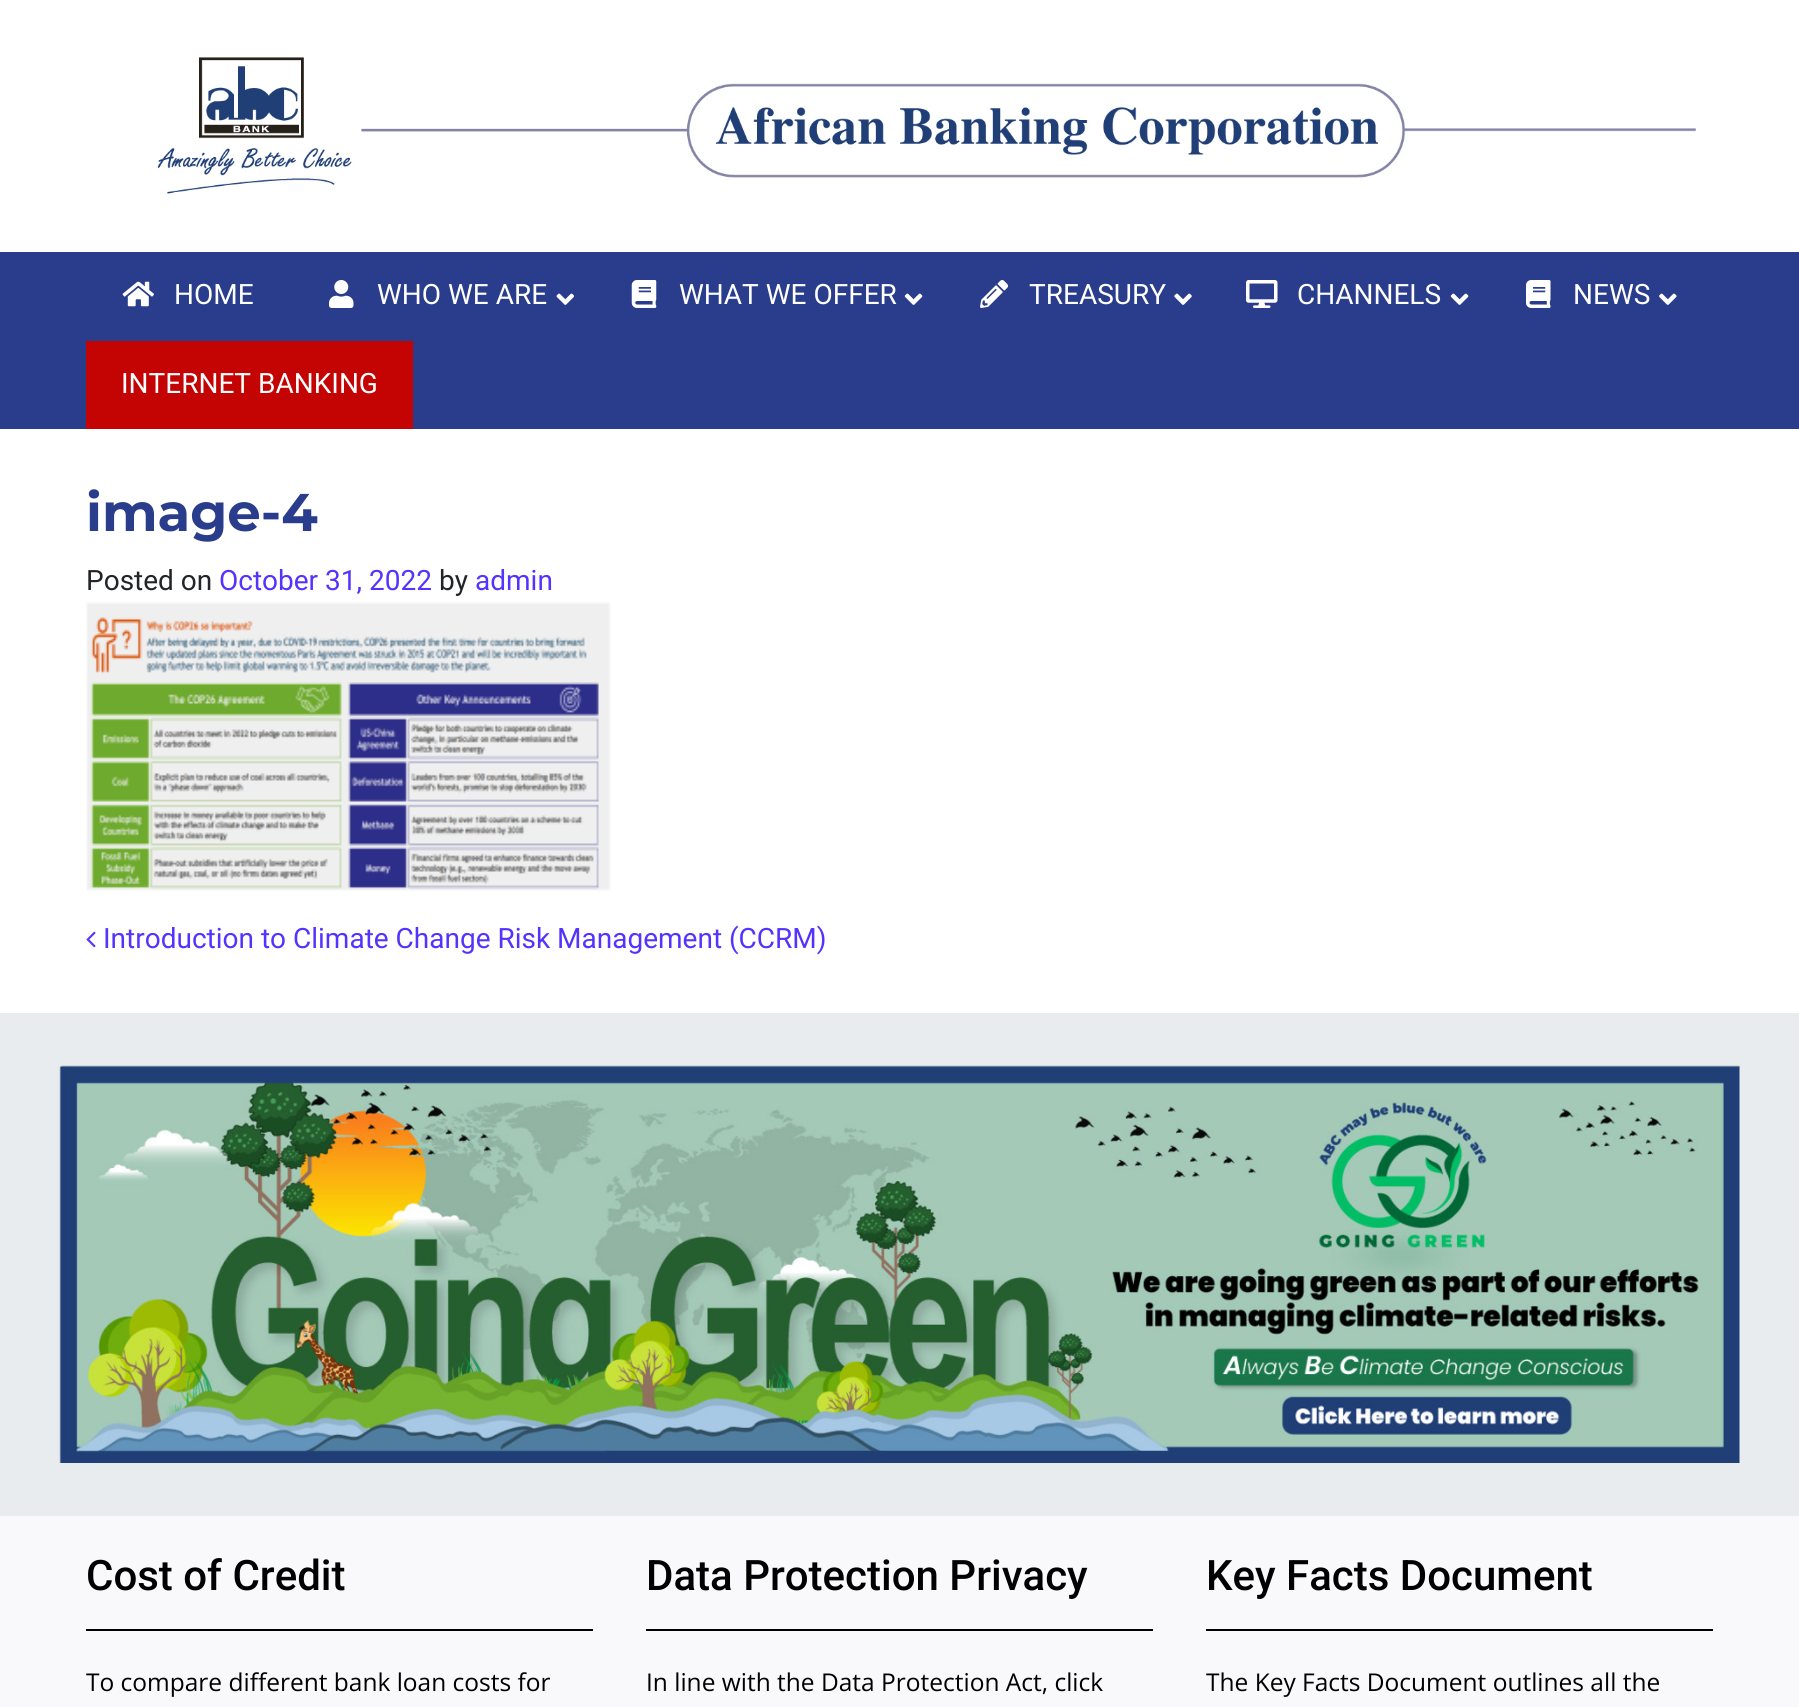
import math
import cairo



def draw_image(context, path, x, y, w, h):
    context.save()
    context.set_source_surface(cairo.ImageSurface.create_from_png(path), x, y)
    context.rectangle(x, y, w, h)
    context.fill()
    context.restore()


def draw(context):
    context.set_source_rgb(1, 1, 1)
    context.paint()
    draw_image(context, "images/1.png", 157, 57, 1539, 137)
    context.set_source_rgb(42 / 255, 61 / 255, 140 / 255)
    context.rectangle(0, 252, 1799, 177)
    context.fill()
    draw_image(context, "images/2.png", 122, 281, 32, 26)
    draw_image(context, "images/3.png", 329, 280, 25, 28)
    draw_image(context, "images/4.png", 556, 293, 18, 12)
    draw_image(context, "images/5.png", 631, 280, 26, 28)
    draw_image(context, "images/6.png", 904, 293, 19, 12)
    draw_image(context, "images/7.png", 980, 280, 28, 28)
    draw_image(context, "images/8.png", 1174, 293, 18, 12)
    draw_image(context, "images/9.png", 1246, 280, 32, 28)
    draw_image(context, "images/6.png", 1450, 293, 19, 12)
    draw_image(context, "images/10.png", 1526, 280, 25, 28)
    draw_image(context, "images/11.png", 1659, 293, 18, 12)
    context.set_source_rgb(196 / 255, 3 / 255, 3 / 255)
    context.rectangle(86, 341, 327, 88)
    context.fill()
    draw_image(context, "images/12.png", 86, 602, 525, 289)
    draw_image(context, "images/13.png", 86, 931, 10, 17)
    context.set_source_rgb(233 / 255, 236 / 255, 239 / 255)
    context.rectangle(0, 1013, 1799, 503)
    context.fill()
    draw_image(context, "images/14.png", 59, 1065, 1681, 398)
    context.set_source_rgb(249 / 255, 249 / 255, 251 / 255)
    context.rectangle(0, 1516, 1799, 191)
    context.fill()
    context.set_source_rgb(0, 0, 0)
    context.rectangle(86, 1629, 507, 2)
    context.fill()
    context.rectangle(646, 1629, 507, 2)
    context.fill()
    context.rectangle(1206, 1629, 507, 2)
    context.fill()
    context.select_font_face("Roboto")
    context.set_font_size(28)
    context.set_source_rgb(1, 1, 1)
    context.move_to(174, 304)
    context.show_text("HOME")
    context.move_to(377, 304)
    context.show_text("WHO WE ARE")
    context.move_to(679, 304)
    context.show_text("WHAT WE OFFER")
    context.move_to(1029, 304)
    context.show_text("TREASURY")
    context.move_to(1297, 304)
    context.show_text("CHANNELS")
    context.move_to(1573, 304)
    context.show_text("NEWS")
    context.move_to(121, 393)
    context.show_text("INTERNET BANKING")
    context.select_font_face("Montserrat", cairo.FontSlant.NORMAL, cairo.FontWeight.BOLD)
    context.set_font_size(53)
    context.set_source_rgb(42 / 255, 61 / 255, 140 / 255)
    context.move_to(86, 531)
    context.show_text("image-4")
    context.select_font_face("Roboto")
    context.set_font_size(28)
    context.set_source_rgb(33 / 255, 37 / 255, 41 / 255)
    context.move_to(86, 590)
    context.show_text("Posted on")
    context.set_source_rgb(85 / 255, 51 / 255, 1)
    context.move_to(219, 590)
    context.show_text("October 31, 2022")
    context.set_source_rgb(33 / 255, 37 / 255, 41 / 255)
    context.move_to(439, 590)
    context.show_text("by")
    context.set_source_rgb(85 / 255, 51 / 255, 1)
    context.move_to(475, 590)
    context.show_text("admin")
    context.move_to(103, 948)
    context.show_text("Introduction to Climate Change Risk Management (CCRM)")
    context.select_font_face("Roboto Medium")
    context.set_font_size(42)
    context.set_source_rgb(0, 0, 0)
    context.move_to(86, 1590)
    context.show_text("Cost of Credit")
    context.select_font_face("Open Sans")
    context.set_font_size(24.5)
    context.move_to(86, 1691)
    context.show_text("To compare different bank loan costs for")
    context.select_font_face("Roboto Medium")
    context.set_font_size(42)
    context.move_to(646, 1590)
    context.show_text("Data Protection Privacy")
    context.select_font_face("Open Sans")
    context.set_font_size(24.5)
    context.move_to(646, 1691)
    context.show_text("In line with the Data Protection Act, click")
    context.select_font_face("Roboto Medium")
    context.set_font_size(42)
    context.move_to(1206, 1590)
    context.show_text("Key Facts Document")
    context.select_font_face("Open Sans")
    context.set_font_size(24.5)
    context.move_to(1206, 1691)
    context.show_text("The Key Facts Document outlines all the")


surface = cairo.ImageSurface(cairo.Format.RGB24, 1799, 1707)
context = cairo.Context(surface)
options = cairo.FontOptions()
options.set_hint_metrics(cairo.HintMetrics.OFF)
options.set_hint_style(cairo.HintStyle.NONE)
context.set_font_options(options)
context.set_miter_limit(4)
draw(context)
surface.write_to_png("out.png")
